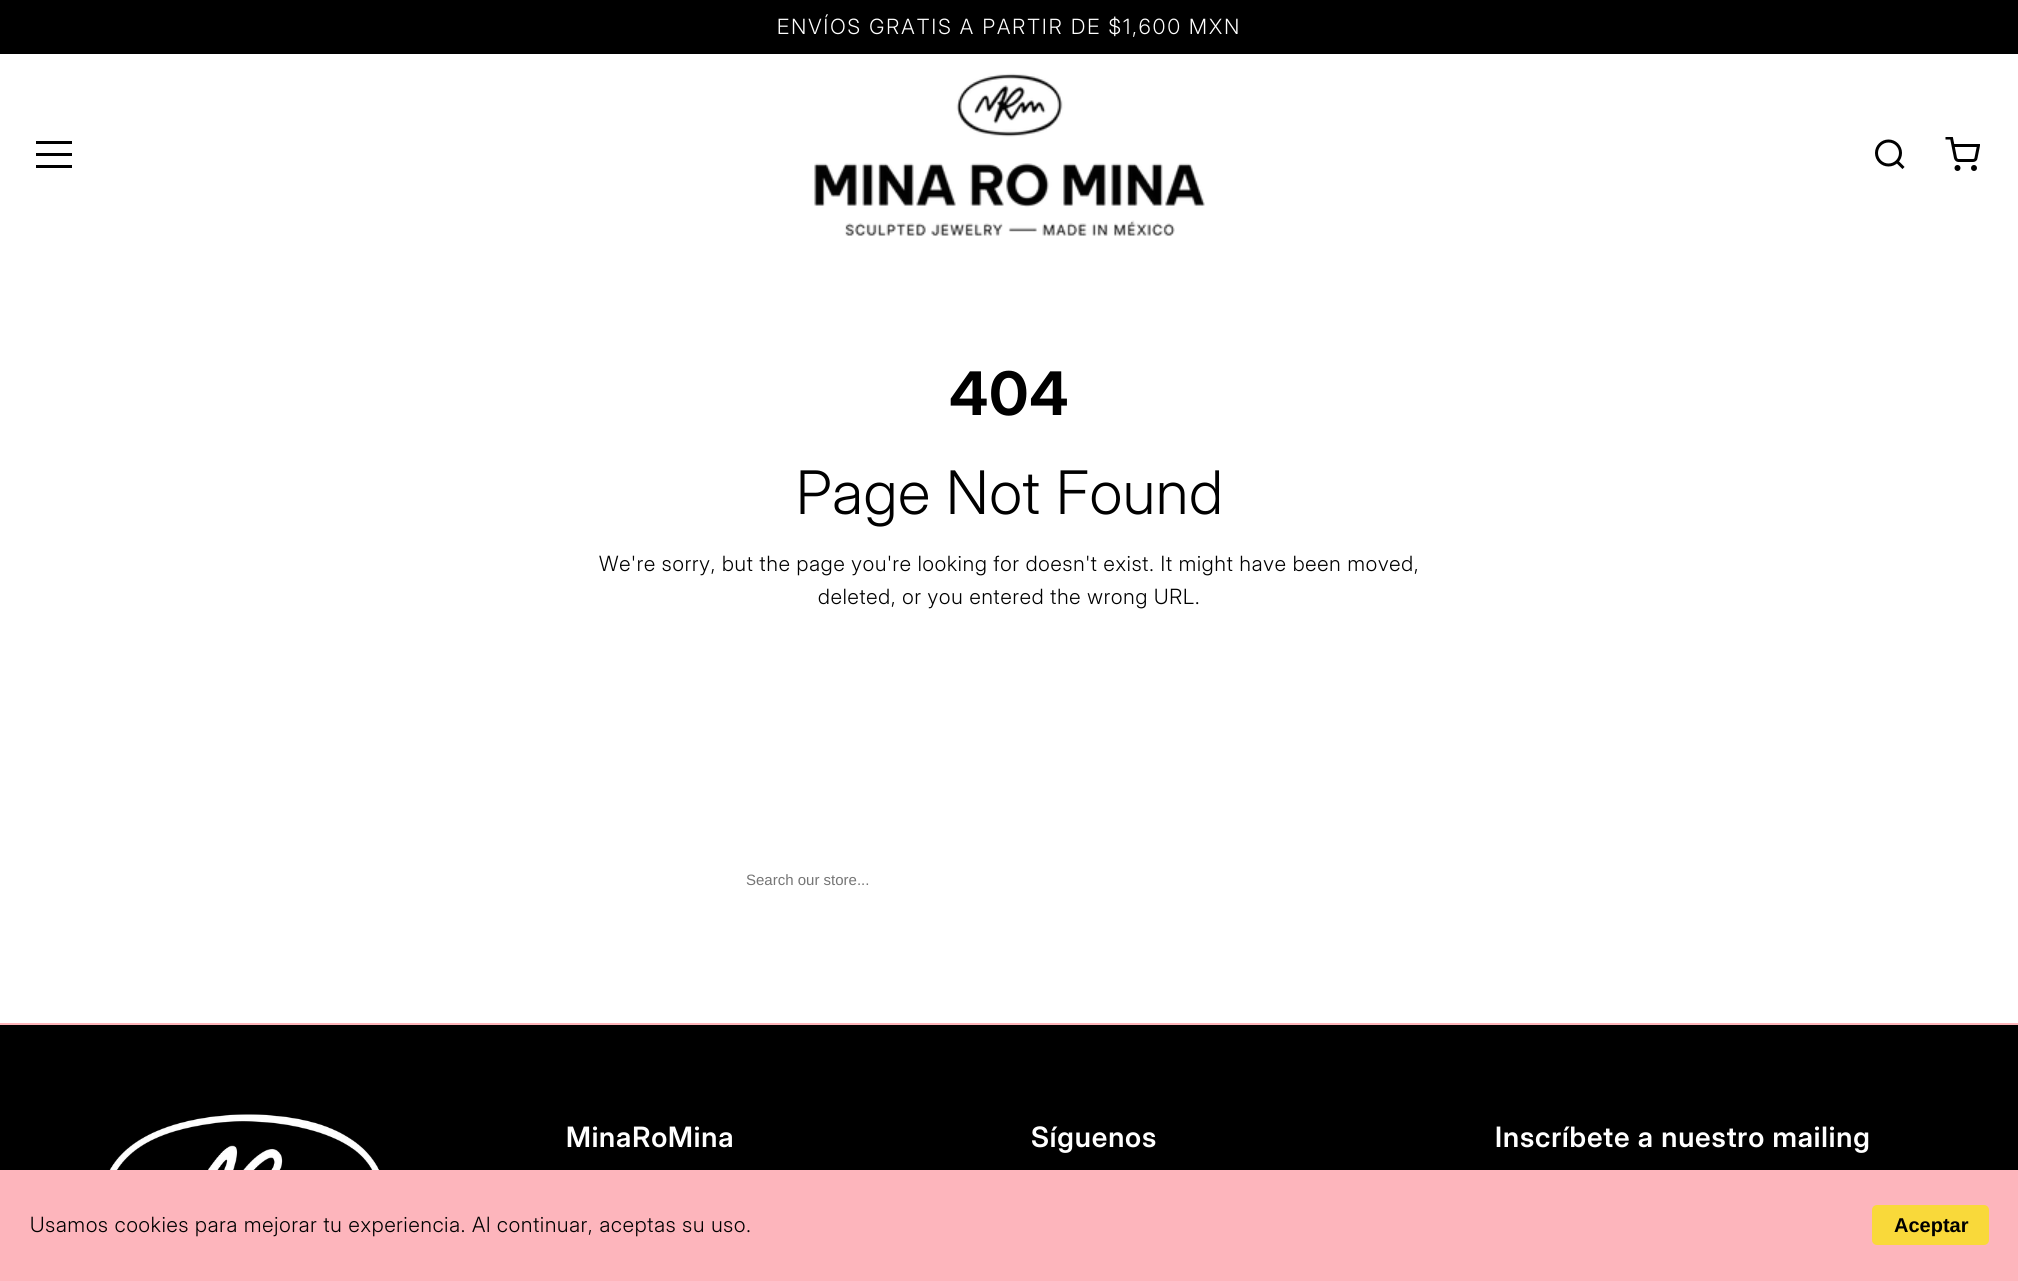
import math
import cairo



def draw_spaced(context, x, y, s, letter, word):
    context.move_to(x, y)
    for ch in s:
        context.show_text(ch)
        context.rel_move_to(letter + word * (ch == ' '), 0)


def rounded_rect(context, x, y, w, h, r):
    context.new_sub_path()
    for i, (u, v) in enumerate([(x + w - r, y + h - r), (x + r, y + h - r), (x + r, y + r), (x + w - r, y + r)]):
        context.arc(u, v, r, i * math.pi / 2, (i + 1) * math.pi / 2)
    context.close_path()


def draw_image(context, path, x, y, w, h):
    context.save()
    context.set_source_surface(cairo.ImageSurface.create_from_png(path), x, y)
    context.rectangle(x, y, w, h)
    context.fill()
    context.restore()


def draw(context):
    context.set_source_rgb(1, 1, 1)
    context.paint()
    context.set_source_rgb(0, 0, 0)
    context.rectangle(0, 0, 2018, 54)
    context.fill()
    context.rectangle(36, 141, 36, 3)
    context.fill()
    context.rectangle(36, 153, 36, 3)
    context.fill()
    context.rectangle(36, 165, 36, 3)
    context.fill()
    draw_image(context, "images/1.png", 814, 73, 391, 163)
    context.arc(1888.5, 153, 12, 0, 2 * math.pi)
    context.set_line_width(3)
    context.stroke()
    context.new_path()
    context.move_to(1903.5, 168)
    context.line_to(1897, 161.5)
    context.stroke()
    context.arc(1957.5, 168, 1.5, 0, 2 * math.pi)
    context.stroke()
    context.arc(1974, 168, 1.5, 0, 2 * math.pi)
    context.stroke()
    context.save()
    context.rectangle(1944, 137, 36, 36)
    context.clip()
    context.new_path()
    context.move_to(1945.5, 138)
    context.line_to(1951.5, 138)
    context.line_to(1955.5, 158)
    context.curve_to(1956, 159.5, 1957, 160.5, 1958.5, 160.5)
    context.line_to(1973, 160.5)
    context.curve_to(1974.5, 160.5, 1976, 159.5, 1976, 158)
    context.line_to(1978.5, 145.5)
    context.line_to(1953, 145.5)
    context.stroke()
    context.restore()
    context.rectangle(0, 1025, 2018, 145)
    context.fill()
    context.set_source_rgb(1, 181 / 255, 186 / 255)
    context.rectangle(0, 1023, 2018, 2)
    context.fill()
    draw_image(context, "images/2.png", 109, 1114, 271, 56)
    context.set_source_rgb(253 / 255, 181 / 255, 188 / 255)
    context.rectangle(0, 1170, 2018, 111)
    context.fill()
    context.set_source_rgb(249 / 255, 217 / 255, 58 / 255)
    rounded_rect(context, 1872, 1205, 117, 40, 5)
    context.fill()
    context.select_font_face("Inter Display Light")
    context.set_font_size(21)
    context.set_source_rgb(1, 1, 1)
    draw_spaced(context, 777, 34, "ENVÍOS GRATIS A PARTIR DE $1,600 MXN", 2.1, 0)
    context.select_font_face("Inter Display", cairo.FontSlant.NORMAL, cairo.FontWeight.BOLD)
    context.set_font_size(60)
    context.set_source_rgb(0, 0, 0)
    draw_spaced(context, 949, 415, "404", 0.9, 0)
    context.select_font_face("Inter Display Light")
    draw_spaced(context, 796, 514, "Page Not Found", 0.9, 0)
    context.set_font_size(21)
    draw_spaced(context, 599, 571, "We're sorry, but the page you're looking for doesn't exist. It might have been moved,", 0.9, 0)
    draw_spaced(context, 818, 604, "deleted, or you entered the wrong URL.", 0.9, 0)
    context.select_font_face("Liberation Sans")
    context.set_font_size(15)
    context.set_source_rgb(117 / 255, 117 / 255, 117 / 255)
    context.move_to(746, 885)
    context.show_text("Search our store...")
    context.select_font_face("Inter Display SemiBold")
    context.set_font_size(28.1)
    context.set_source_rgb(1, 1, 1)
    draw_spaced(context, 566, 1147, "MinaRoMina", 0.9, 0)
    draw_spaced(context, 1031, 1147, "Síguenos", 0.9, 0)
    draw_spaced(context, 1495, 1147, "Inscríbete a nuestro mailing", 0.9, 0)
    context.select_font_face("Inter Display Light")
    context.set_font_size(21)
    context.set_source_rgb(0, 0, 0)
    draw_spaced(context, 30, 1232, "Usamos cookies para mejorar tu experiencia. Al continuar, aceptas su uso.", 0.9, 0)
    context.select_font_face("Liberation Sans", cairo.FontSlant.NORMAL, cairo.FontWeight.BOLD)
    context.set_font_size(20)
    context.move_to(1894, 1232)
    context.show_text("Aceptar")


surface = cairo.ImageSurface(cairo.Format.RGB24, 2018, 1281)
context = cairo.Context(surface)
options = cairo.FontOptions()
options.set_hint_metrics(cairo.HintMetrics.OFF)
options.set_hint_style(cairo.HintStyle.NONE)
context.set_font_options(options)
context.set_miter_limit(4)
draw(context)
surface.write_to_png("out.png")
